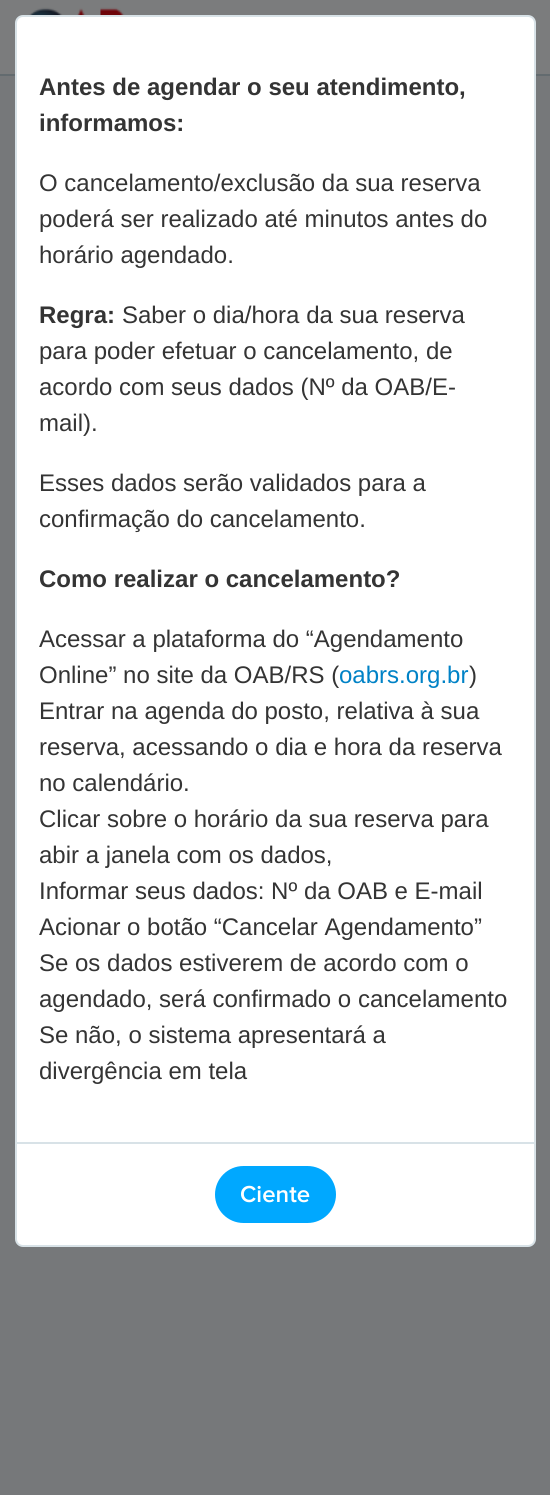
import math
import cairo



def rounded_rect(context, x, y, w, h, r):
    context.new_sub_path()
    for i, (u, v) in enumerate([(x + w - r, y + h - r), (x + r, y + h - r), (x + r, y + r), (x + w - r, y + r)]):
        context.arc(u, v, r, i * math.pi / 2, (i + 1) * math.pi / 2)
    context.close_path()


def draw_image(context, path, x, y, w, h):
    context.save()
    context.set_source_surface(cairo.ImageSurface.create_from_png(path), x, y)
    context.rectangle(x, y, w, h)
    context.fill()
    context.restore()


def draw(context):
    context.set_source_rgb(118 / 255, 120 / 255, 122 / 255)
    context.paint()
    context.set_source_rgb(123 / 255, 124 / 255, 125 / 255)
    context.rectangle(0, 0, 550, 74)
    context.fill()
    context.set_source_rgb(99 / 255, 107 / 255, 111 / 255)
    context.rectangle(0, 74, 550, 2)
    context.fill()
    draw_image(context, "images/1.png", 22, 7, 394, 11)
    context.set_source_rgb(1, 1, 1)
    rounded_rect(context, 16, 16, 519, 1230, 7)
    context.fill_preserve()
    context.set_source_rgb(216 / 255, 226 / 255, 231 / 255)
    context.stroke()
    context.rectangle(17, 1142, 517, 2)
    context.fill()
    context.set_source_rgb(0, 168 / 255, 1)
    rounded_rect(context, 216, 1167, 119, 55, 27.5)
    context.fill_preserve()
    context.stroke()
    context.select_font_face("Liberation Sans", cairo.FontSlant.NORMAL, cairo.FontWeight.BOLD)
    context.set_font_size(24)
    context.set_source_rgb(52 / 255, 52 / 255, 52 / 255)
    context.move_to(39, 95)
    context.show_text("Antes de agendar o seu atendimento,")
    context.move_to(39, 131)
    context.show_text("informamos:")
    context.select_font_face("Liberation Sans")
    context.move_to(39, 191)
    context.show_text("O cancelamento/exclusão da sua reserva")
    context.move_to(39, 227)
    context.show_text("poderá ser realizado até minutos antes do")
    context.move_to(39, 263)
    context.show_text("horário agendado.")
    context.select_font_face("Liberation Sans", cairo.FontSlant.NORMAL, cairo.FontWeight.BOLD)
    context.move_to(39, 323)
    context.show_text("Regra:")
    context.select_font_face("Liberation Sans")
    context.move_to(122, 323)
    context.show_text("Saber o dia/hora da sua reserva")
    context.move_to(39, 359)
    context.show_text("para poder efetuar o cancelamento, de")
    context.move_to(39, 395)
    context.show_text("acordo com seus dados (Nº da OAB/E-")
    context.move_to(39, 431)
    context.show_text("mail).")
    context.move_to(39, 491)
    context.show_text("Esses dados serão validados para a")
    context.move_to(39, 527)
    context.show_text("confirmação do cancelamento.")
    context.select_font_face("Liberation Sans", cairo.FontSlant.NORMAL, cairo.FontWeight.BOLD)
    context.move_to(39, 587)
    context.show_text("Como realizar o cancelamento?")
    context.select_font_face("Liberation Sans")
    context.move_to(39, 647)
    context.show_text("Acessar a plataforma do “Agendamento")
    context.move_to(39, 683)
    context.show_text("Online” no site da OAB/RS (")
    context.set_source_rgb(0, 130 / 255, 198 / 255)
    context.move_to(339, 683)
    context.show_text("oabrs.org.br")
    context.set_source_rgb(52 / 255, 52 / 255, 52 / 255)
    context.move_to(469, 683)
    context.show_text(")")
    context.move_to(39, 719)
    context.show_text("Entrar na agenda do posto, relativa à sua")
    context.move_to(39, 755)
    context.show_text("reserva, acessando o dia e hora da reserva")
    context.move_to(39, 791)
    context.show_text("no calendário.")
    context.move_to(39, 827)
    context.show_text("Clicar sobre o horário da sua reserva para")
    context.move_to(39, 863)
    context.show_text("abir a janela com os dados,")
    context.move_to(39, 899)
    context.show_text("Informar seus dados: Nº da OAB e E-mail")
    context.move_to(39, 935)
    context.show_text("Acionar o botão “Cancelar Agendamento”")
    context.move_to(39, 971)
    context.show_text("Se os dados estiverem de acordo com o")
    context.move_to(39, 1007)
    context.show_text("agendado, será confirmado o cancelamento")
    context.move_to(39, 1043)
    context.show_text("Se não, o sistema apresentará a")
    context.move_to(39, 1079)
    context.show_text("divergência em tela")
    context.select_font_face("Proxima Nova SemiBold")
    context.set_source_rgb(1, 1, 1)
    context.move_to(240, 1202)
    context.show_text("Ciente")


surface = cairo.ImageSurface(cairo.Format.RGB24, 550, 1495)
context = cairo.Context(surface)
options = cairo.FontOptions()
options.set_hint_metrics(cairo.HintMetrics.OFF)
options.set_hint_style(cairo.HintStyle.NONE)
context.set_font_options(options)
context.set_miter_limit(4)
draw(context)
surface.write_to_png("out.png")
